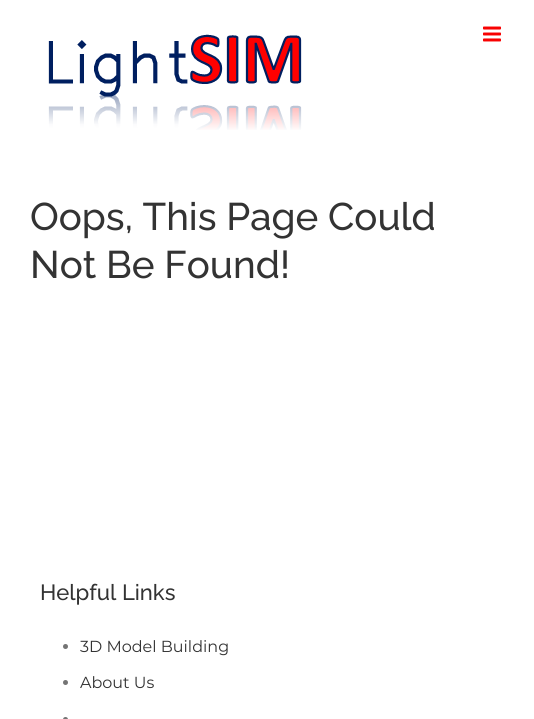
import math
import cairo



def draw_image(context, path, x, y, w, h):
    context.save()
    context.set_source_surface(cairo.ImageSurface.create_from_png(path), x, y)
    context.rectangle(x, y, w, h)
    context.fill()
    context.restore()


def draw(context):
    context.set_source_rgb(1, 1, 1)
    context.paint()
    draw_image(context, "images/1.png", 48, 34, 254, 96)
    draw_image(context, "images/2.png", 483, 26, 18, 16)
    context.set_source_rgb(116 / 255, 116 / 255, 116 / 255)
    context.arc(65.5, 646.5, 2.5, 0, 2 * math.pi)
    context.fill()
    context.arc(65.5, 682.5, 2.5, 0, 2 * math.pi)
    context.fill()
    context.arc(65.5, 719.5, 2.5, 0, 2 * math.pi)
    context.fill()
    context.select_font_face("Raleway Thin")
    context.set_font_size(38.5)
    context.set_source_rgb(51 / 255, 51 / 255, 51 / 255)
    context.move_to(30, 230)
    context.show_text("Oops, This Page Could")
    context.move_to(30, 278)
    context.show_text("Not Be Found!")
    context.set_font_size(22)
    context.move_to(40, 600)
    context.show_text("Helpful Links")
    context.select_font_face("Montserrat Thin")
    context.set_font_size(16)
    context.move_to(80, 652)
    context.show_text("3D Model Building")
    context.move_to(80, 688)
    context.show_text("About Us")


surface = cairo.ImageSurface(cairo.Format.RGB24, 534, 719)
context = cairo.Context(surface)
options = cairo.FontOptions()
options.set_hint_metrics(cairo.HintMetrics.OFF)
options.set_hint_style(cairo.HintStyle.NONE)
context.set_font_options(options)
context.set_miter_limit(4)
draw(context)
surface.write_to_png("out.png")
